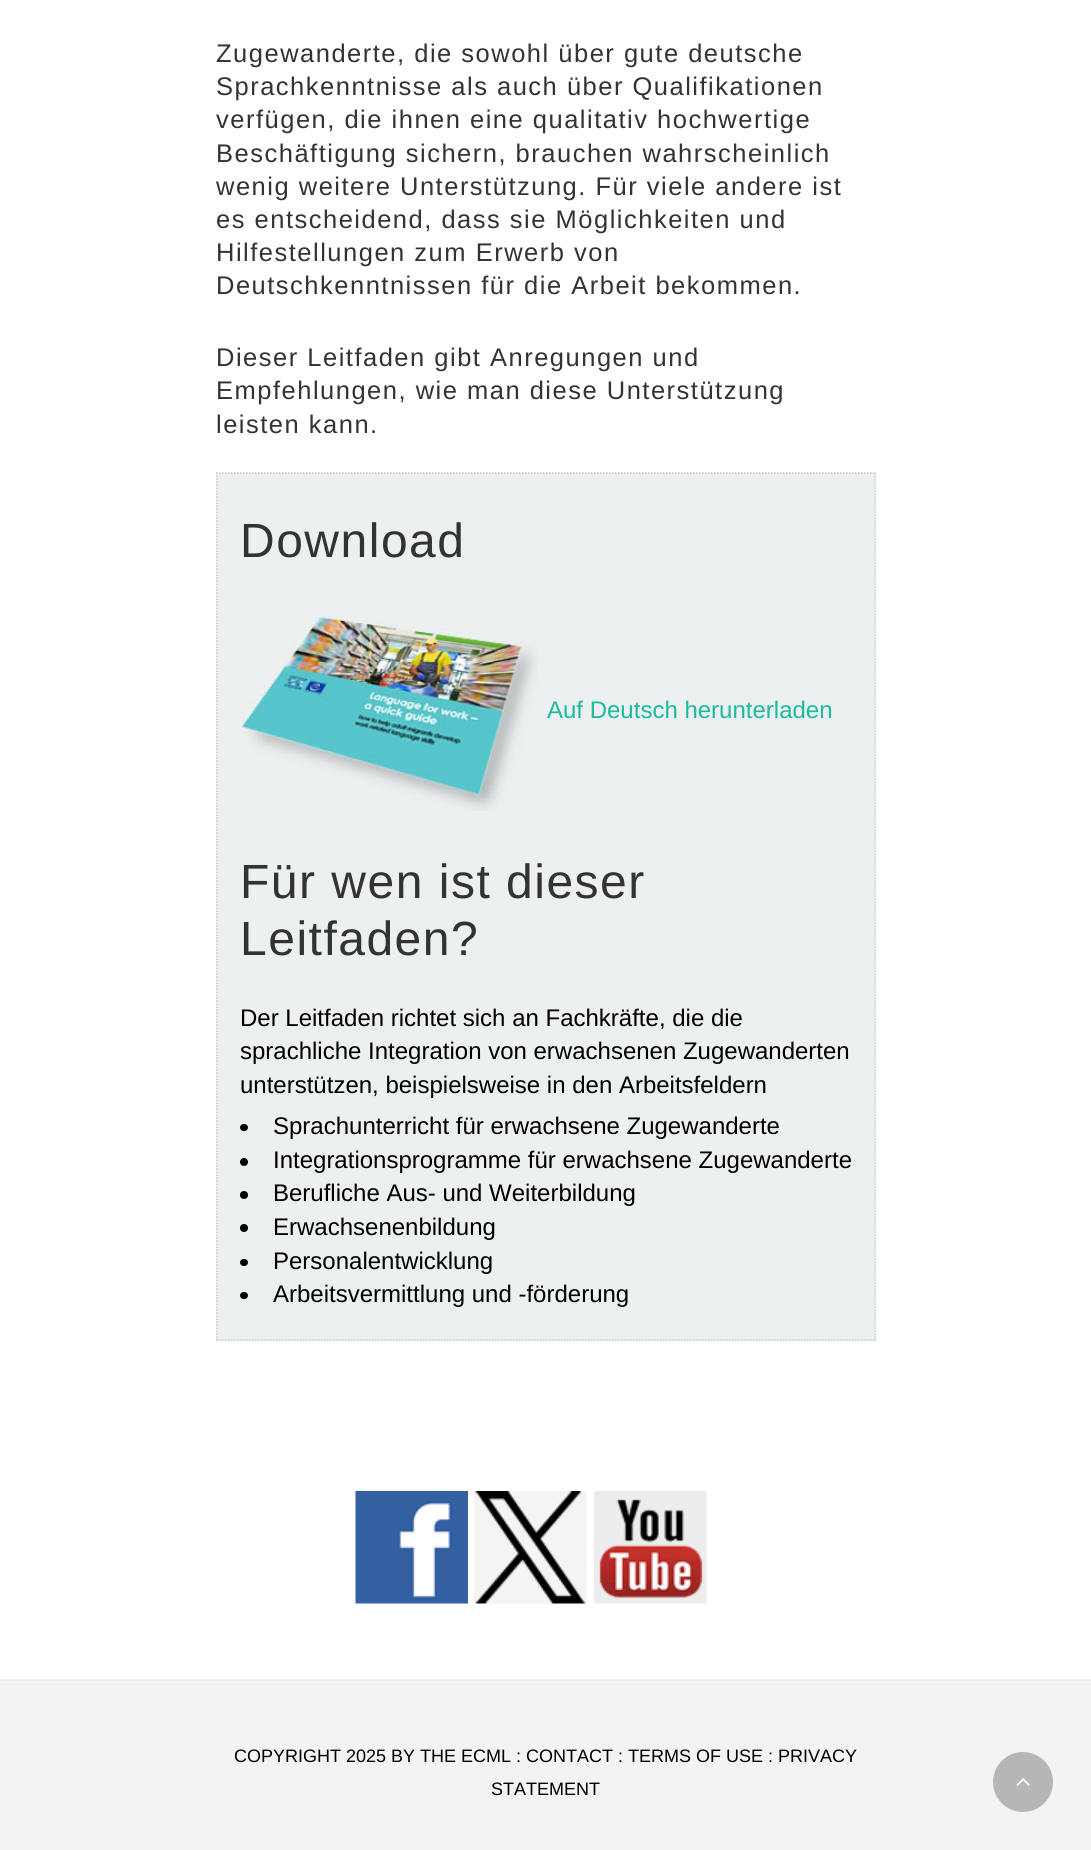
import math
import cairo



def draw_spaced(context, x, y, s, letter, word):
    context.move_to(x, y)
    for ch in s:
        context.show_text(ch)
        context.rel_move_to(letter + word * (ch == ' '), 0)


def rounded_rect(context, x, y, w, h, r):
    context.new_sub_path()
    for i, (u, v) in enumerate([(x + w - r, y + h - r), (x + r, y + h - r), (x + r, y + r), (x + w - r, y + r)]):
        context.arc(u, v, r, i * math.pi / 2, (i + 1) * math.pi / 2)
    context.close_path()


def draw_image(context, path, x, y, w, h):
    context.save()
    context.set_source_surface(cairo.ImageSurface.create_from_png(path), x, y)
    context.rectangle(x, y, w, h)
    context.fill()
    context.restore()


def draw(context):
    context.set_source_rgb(1, 1, 1)
    context.paint()
    context.set_source_rgb(236 / 255, 240 / 255, 240 / 255)
    context.rectangle(216, 473, 660, 868)
    context.fill()
    context.new_path()
    context.move_to(216, 473)
    context.line_to(876, 473)
    context.set_source_rgb(204 / 255, 204 / 255, 204 / 255)
    context.set_line_width(1.5)
    context.set_dash([1.5, 1.5])
    context.stroke()
    context.new_path()
    context.move_to(875, 472.5)
    context.line_to(875, 1341)
    context.stroke()
    context.new_path()
    context.move_to(216, 1340)
    context.line_to(876, 1340)
    context.stroke()
    context.new_path()
    context.move_to(217, 472.5)
    context.line_to(217, 1341)
    context.stroke()
    draw_image(context, "images/1.png", 240, 612, 298, 199)
    context.set_source_rgb(0, 0, 0)
    rounded_rect(context, 240, 1124, 8, 7, 3.5)
    context.fill()
    context.arc(244, 1162, 4, 0, 2 * math.pi)
    context.fill()
    context.arc(244, 1195, 4, 0, 2 * math.pi)
    context.fill()
    context.arc(244, 1228, 4, 0, 2 * math.pi)
    context.fill()
    rounded_rect(context, 240, 1259, 8, 7, 3.5)
    context.fill()
    rounded_rect(context, 240, 1292, 8, 7, 3.5)
    context.fill()
    draw_image(context, "images/2.png", 355, 1491, 113, 113)
    draw_image(context, "images/3.png", 474, 1491, 113, 113)
    draw_image(context, "images/4.png", 594, 1491, 113, 113)
    context.set_source_rgb(243 / 255, 243 / 255, 243 / 255)
    context.rectangle(0, 1681, 1091, 169)
    context.fill()
    context.set_source_rgb(238 / 255, 238 / 255, 238 / 255)
    context.rectangle(0, 1679, 1091, 2)
    context.fill()
    context.set_source_rgb(182 / 255, 182 / 255, 182 / 255)
    context.arc(1023, 1782, 30, 0, 2 * math.pi)
    context.fill()
    draw_image(context, "images/5.png", 1016, 1778, 14, 8)
    context.select_font_face("Liberation Sans")
    context.set_font_size(25.5)
    context.set_source_rgb(51 / 255, 51 / 255, 51 / 255)
    draw_spaced(context, 216, 62, "Zugewanderte, die sowohl über gute deutsche", 1.5, 0)
    draw_spaced(context, 216, 95, "Sprachkenntnisse als auch über Qualifikationen", 1.5, 0)
    draw_spaced(context, 216, 128, "verfügen, die ihnen eine qualitativ hochwertige", 1.5, 0)
    draw_spaced(context, 216, 162, "Beschäftigung sichern, brauchen wahrscheinlich", 1.5, 0)
    draw_spaced(context, 216, 195, "wenig weitere Unterstützung. Für viele andere ist", 1.5, 0)
    draw_spaced(context, 216, 228, "es entscheidend, dass sie Möglichkeiten und", 1.5, 0)
    draw_spaced(context, 216, 261, "Hilfestellungen zum Erwerb von", 1.5, 0)
    draw_spaced(context, 216, 294, "Deutschkenntnissen für die Arbeit bekommen.", 1.5, 0)
    draw_spaced(context, 216, 366, "Dieser Leitfaden gibt Anregungen und", 1.5, 0)
    draw_spaced(context, 216, 399, "Empfehlungen, wie man diese Unterstützung", 1.5, 0)
    draw_spaced(context, 216, 433, "leisten kann.", 1.5, 0)
    context.set_font_size(48)
    draw_spaced(context, 240, 557, "Download", 1.5, 0)
    context.set_font_size(24)
    context.set_source_rgb(26 / 255, 188 / 255, 156 / 255)
    context.move_to(547, 718)
    context.show_text("Auf Deutsch herunterladen")
    context.set_font_size(48)
    context.set_source_rgb(51 / 255, 51 / 255, 51 / 255)
    draw_spaced(context, 240, 898, "Für wen ist dieser", 1.5, 0)
    draw_spaced(context, 240, 955, "Leitfaden?", 1.5, 0)
    context.set_font_size(24)
    context.set_source_rgb(0, 0, 0)
    context.move_to(240, 1026)
    context.show_text("Der Leitfaden richtet sich an Fachkräfte, die die")
    context.move_to(240, 1059)
    context.show_text("sprachliche Integration von erwachsenen Zugewanderten")
    context.move_to(240, 1093)
    context.show_text("unterstützen, beispielsweise in den Arbeitsfeldern")
    context.move_to(273, 1134)
    context.show_text("Sprachunterricht für erwachsene Zugewanderte")
    context.move_to(273, 1168)
    context.show_text("Integrationsprogramme für erwachsene Zugewanderte")
    context.move_to(273, 1201)
    context.show_text("Berufliche Aus- und Weiterbildung")
    context.move_to(273, 1235)
    context.show_text("Erwachsenenbildung")
    context.move_to(273, 1269)
    context.show_text("Personalentwicklung")
    context.move_to(273, 1302)
    context.show_text("Arbeitsvermittlung und -förderung")
    context.set_font_size(18)
    context.move_to(234, 1762)
    context.show_text("COPYRIGHT 2025 BY THE ECML : CONTACT : TERMS OF USE : PRIVACY")
    context.move_to(491, 1795)
    context.show_text("STATEMENT")


surface = cairo.ImageSurface(cairo.Format.RGB24, 1091, 1850)
context = cairo.Context(surface)
options = cairo.FontOptions()
options.set_hint_metrics(cairo.HintMetrics.OFF)
options.set_hint_style(cairo.HintStyle.NONE)
context.set_font_options(options)
context.set_miter_limit(4)
draw(context)
surface.write_to_png("out.png")
